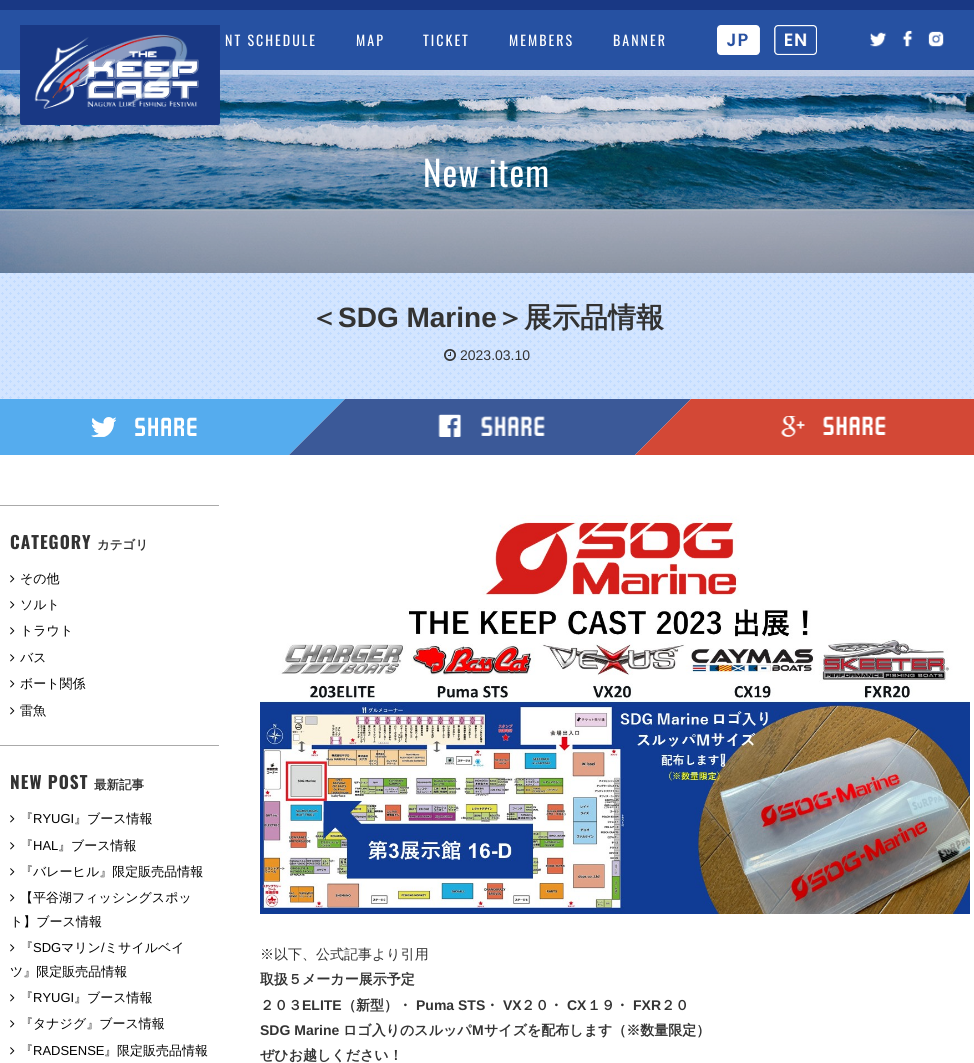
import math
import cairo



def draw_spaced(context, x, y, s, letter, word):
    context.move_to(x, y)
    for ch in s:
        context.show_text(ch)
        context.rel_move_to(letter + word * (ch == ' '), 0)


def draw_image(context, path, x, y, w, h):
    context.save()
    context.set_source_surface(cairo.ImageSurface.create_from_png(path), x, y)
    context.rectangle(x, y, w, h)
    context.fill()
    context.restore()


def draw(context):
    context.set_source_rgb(1, 1, 1)
    context.paint()
    context.set_source_rgb(38 / 255, 81 / 255, 162 / 255)
    context.rectangle(0, 10, 974, 60)
    context.fill()
    context.set_source_rgb(25 / 255, 56 / 255, 132 / 255)
    context.rectangle(0, 0, 974, 10)
    context.fill()
    draw_image(context, "images/6.png", 0, 70, 974, 203)
    draw_image(context, "images/1.png", 20, 25, 200, 100)
    draw_image(context, "images/2.png", 717, 25, 100, 30)
    draw_image(context, "images/3.png", 870, 32, 17, 15)
    draw_image(context, "images/4.png", 902, 30, 11, 17)
    draw_image(context, "images/5.png", 928, 31, 16, 16)
    draw_image(context, "images/7.png", 0, 273, 974, 126)
    draw_image(context, "images/8.png", 444, 349, 12, 12)
    context.set_source_rgb(85 / 255, 172 / 255, 238 / 255)
    context.new_path()
    context.move_to(-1, 399)
    context.line_to(345, 399)
    context.line_to(289, 455)
    context.line_to(-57, 455)
    context.close_path()
    context.fill()
    draw_image(context, "images/9.png", 91, 417, 106, 20)
    context.set_source_rgb(59 / 255, 89 / 255, 152 / 255)
    context.new_path()
    context.move_to(345, 399)
    context.line_to(691, 399)
    context.line_to(635, 455)
    context.line_to(289, 455)
    context.close_path()
    context.fill()
    draw_image(context, "images/10.png", 438, 414, 107, 23)
    context.set_source_rgb(211 / 255, 72 / 255, 54 / 255)
    context.new_path()
    context.move_to(691, 399)
    context.line_to(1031, 399)
    context.line_to(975, 455)
    context.line_to(635, 455)
    context.close_path()
    context.fill()
    draw_image(context, "images/11.png", 781, 416, 105, 21)
    context.set_source_rgb(170 / 255, 170 / 255, 170 / 255)
    context.rectangle(0, 505, 220, 1)
    context.fill()
    context.set_source_rgb(1, 1, 1)
    context.rectangle(219, 505, 1, 1)
    context.fill()
    draw_image(context, "images/12.png", 10, 575, 5, 8)
    draw_image(context, "images/12.png", 10, 601, 5, 8)
    draw_image(context, "images/12.png", 10, 627, 5, 8)
    draw_image(context, "images/12.png", 10, 654, 5, 8)
    draw_image(context, "images/12.png", 10, 680, 5, 8)
    draw_image(context, "images/12.png", 10, 707, 5, 8)
    context.set_source_rgb(170 / 255, 170 / 255, 170 / 255)
    context.rectangle(0, 745, 220, 1)
    context.fill()
    context.set_source_rgb(1, 1, 1)
    context.rectangle(219, 745, 1, 1)
    context.fill()
    draw_image(context, "images/12.png", 10, 815, 5, 8)
    draw_image(context, "images/12.png", 10, 842, 5, 8)
    draw_image(context, "images/12.png", 10, 868, 5, 8)
    draw_image(context, "images/12.png", 10, 894, 5, 8)
    draw_image(context, "images/12.png", 10, 944, 5, 8)
    draw_image(context, "images/12.png", 10, 994, 5, 8)
    draw_image(context, "images/12.png", 10, 1020, 5, 8)
    draw_image(context, "images/12.png", 10, 1047, 5, 8)
    draw_image(context, "images/13.png", 260, 515, 710, 399)
    context.select_font_face("Oswald")
    context.set_font_size(14)
    draw_spaced(context, 225, 46, "NT SCHEDULE", 2, 0)
    draw_spaced(context, 356, 46, "MAP", 2, 0)
    draw_spaced(context, 423, 46, "TICKET", 2, 0)
    draw_spaced(context, 509, 46, "MEMBERS", 2, 0)
    draw_spaced(context, 613, 46, "BANNER", 2, 0)
    context.set_font_size(35)
    draw_spaced(context, 423, 187, "New item", 1, 0)
    context.select_font_face("WenQuanYi Zen Hei", cairo.FontSlant.NORMAL, cairo.FontWeight.BOLD)
    context.set_font_size(28)
    context.set_source_rgb(51 / 255, 51 / 255, 51 / 255)
    context.move_to(310, 327)
    context.show_text("＜")
    context.select_font_face("Liberation Sans", cairo.FontSlant.NORMAL, cairo.FontWeight.BOLD)
    context.move_to(338, 327)
    context.show_text("SDG Marine")
    context.select_font_face("WenQuanYi Zen Hei", cairo.FontSlant.NORMAL, cairo.FontWeight.BOLD)
    context.move_to(496, 327)
    context.show_text("＞展示品情報")
    context.select_font_face("Liberation Sans")
    context.set_font_size(14)
    context.move_to(460, 360)
    context.show_text("2023.03.10")
    context.select_font_face("Oswald", cairo.FontSlant.NORMAL, cairo.FontWeight.BOLD)
    context.set_font_size(17.25)
    draw_spaced(context, 10, 549, "CATEGORY", 1, 0)
    context.select_font_face("WenQuanYi Zen Hei", cairo.FontSlant.NORMAL, cairo.FontWeight.BOLD)
    context.set_font_size(12.5)
    context.move_to(97, 549)
    context.show_text("カテゴリ")
    context.select_font_face("WenQuanYi Zen Hei Medium")
    context.set_font_size(13)
    context.set_source_rgb(0, 0, 0)
    context.move_to(20, 583)
    context.show_text("その他")
    context.move_to(20, 609)
    context.show_text("ソルト")
    context.move_to(20, 635)
    context.show_text("トラウト")
    context.move_to(20, 662)
    context.show_text("バス")
    context.move_to(20, 688)
    context.show_text("ボート関係")
    context.move_to(20, 715)
    context.show_text("雷魚")
    context.select_font_face("Oswald", cairo.FontSlant.NORMAL, cairo.FontWeight.BOLD)
    context.set_font_size(17.25)
    context.set_source_rgb(51 / 255, 51 / 255, 51 / 255)
    draw_spaced(context, 10, 789, "NEW POST", 1, 0)
    context.select_font_face("WenQuanYi Zen Hei", cairo.FontSlant.NORMAL, cairo.FontWeight.BOLD)
    context.set_font_size(12.5)
    context.move_to(94, 789)
    context.show_text("最新記事")
    context.select_font_face("WenQuanYi Zen Hei Medium")
    context.set_font_size(13)
    context.set_source_rgb(0, 0, 0)
    context.move_to(20, 823)
    context.show_text("『")
    context.select_font_face("Liberation Sans")
    context.move_to(33, 823)
    context.show_text("RYUGI")
    context.select_font_face("WenQuanYi Zen Hei Medium")
    context.move_to(74, 823)
    context.show_text("』ブース情報")
    context.move_to(20, 850)
    context.show_text("『")
    context.select_font_face("Liberation Sans")
    context.move_to(33, 850)
    context.show_text("HAL")
    context.select_font_face("WenQuanYi Zen Hei Medium")
    context.move_to(58, 850)
    context.show_text("』ブース情報")
    context.move_to(20, 876)
    context.show_text("『バレーヒル』限定販売品情報")
    context.move_to(20, 902)
    context.show_text("【平谷湖フィッシングスポッ")
    context.move_to(10, 926)
    context.show_text("ト】ブース情報")
    context.move_to(20, 952)
    context.show_text("『")
    context.select_font_face("Liberation Sans")
    context.move_to(33, 952)
    context.show_text("SDG")
    context.select_font_face("WenQuanYi Zen Hei Medium")
    context.move_to(61, 952)
    context.show_text("マリン ミサイルベイ")
    context.select_font_face("Liberation Sans")
    context.move_to(101, 952)
    context.show_text("/")
    context.select_font_face("WenQuanYi Zen Hei Medium")
    context.move_to(10, 976)
    context.show_text("ツ』限定販売品情報")
    context.move_to(20, 1002)
    context.show_text("『")
    context.select_font_face("Liberation Sans")
    context.move_to(33, 1002)
    context.show_text("RYUGI")
    context.select_font_face("WenQuanYi Zen Hei Medium")
    context.move_to(74, 1002)
    context.show_text("』ブース情報")
    context.move_to(20, 1028)
    context.show_text("『タナジグ』ブース情報")
    context.move_to(20, 1055)
    context.show_text("『")
    context.select_font_face("Liberation Sans")
    context.move_to(33, 1055)
    context.show_text("RADSENSE")
    context.select_font_face("WenQuanYi Zen Hei Medium")
    context.move_to(104, 1055)
    context.show_text("』限定販売品情報")
    context.set_font_size(14)
    context.set_source_rgb(51 / 255, 51 / 255, 51 / 255)
    context.move_to(260, 959)
    context.show_text("※以下、公式記事より引用")
    context.select_font_face("WenQuanYi Zen Hei", cairo.FontSlant.NORMAL, cairo.FontWeight.BOLD)
    context.move_to(260, 984)
    context.show_text("取扱５メーカー展示予定")
    context.move_to(260, 1010)
    context.show_text("２０３")
    context.select_font_face("Liberation Sans", cairo.FontSlant.NORMAL, cairo.FontWeight.BOLD)
    context.move_to(302, 1010)
    context.show_text("ELITE")
    context.select_font_face("WenQuanYi Zen Hei", cairo.FontSlant.NORMAL, cairo.FontWeight.BOLD)
    context.move_to(342, 1010)
    context.show_text("（新型）・")
    context.select_font_face("Liberation Sans", cairo.FontSlant.NORMAL, cairo.FontWeight.BOLD)
    context.move_to(416, 1010)
    context.show_text("Puma STS")
    context.select_font_face("WenQuanYi Zen Hei", cairo.FontSlant.NORMAL, cairo.FontWeight.BOLD)
    context.move_to(485, 1010)
    context.show_text("・")
    context.select_font_face("Liberation Sans", cairo.FontSlant.NORMAL, cairo.FontWeight.BOLD)
    context.move_to(503, 1010)
    context.show_text("VX")
    context.select_font_face("WenQuanYi Zen Hei", cairo.FontSlant.NORMAL, cairo.FontWeight.BOLD)
    context.move_to(521, 1010)
    context.show_text("２０・")
    context.select_font_face("Liberation Sans", cairo.FontSlant.NORMAL, cairo.FontWeight.BOLD)
    context.move_to(567, 1010)
    context.show_text("CX")
    context.select_font_face("WenQuanYi Zen Hei", cairo.FontSlant.NORMAL, cairo.FontWeight.BOLD)
    context.move_to(587, 1010)
    context.show_text("１９・")
    context.select_font_face("Liberation Sans", cairo.FontSlant.NORMAL, cairo.FontWeight.BOLD)
    context.move_to(633, 1010)
    context.show_text("FXR")
    context.select_font_face("WenQuanYi Zen Hei", cairo.FontSlant.NORMAL, cairo.FontWeight.BOLD)
    context.move_to(661, 1010)
    context.show_text("２０")
    context.select_font_face("Liberation Sans", cairo.FontSlant.NORMAL, cairo.FontWeight.BOLD)
    context.move_to(260, 1035)
    context.show_text("SDG Marine")
    context.select_font_face("WenQuanYi Zen Hei", cairo.FontSlant.NORMAL, cairo.FontWeight.BOLD)
    context.move_to(343, 1035)
    context.show_text("ロゴ入りのスルッパ")
    context.select_font_face("Liberation Sans", cairo.FontSlant.NORMAL, cairo.FontWeight.BOLD)
    context.move_to(472, 1035)
    context.show_text("M")
    context.select_font_face("WenQuanYi Zen Hei", cairo.FontSlant.NORMAL, cairo.FontWeight.BOLD)
    context.move_to(484, 1035)
    context.show_text("サイズを配布します（※数量限定）")
    context.move_to(260, 1060)
    context.show_text("ぜひお越しください！")


surface = cairo.ImageSurface(cairo.Format.RGB24, 974, 1063)
context = cairo.Context(surface)
options = cairo.FontOptions()
options.set_hint_metrics(cairo.HintMetrics.OFF)
options.set_hint_style(cairo.HintStyle.NONE)
context.set_font_options(options)
context.set_miter_limit(4)
draw(context)
surface.write_to_png("out.png")
